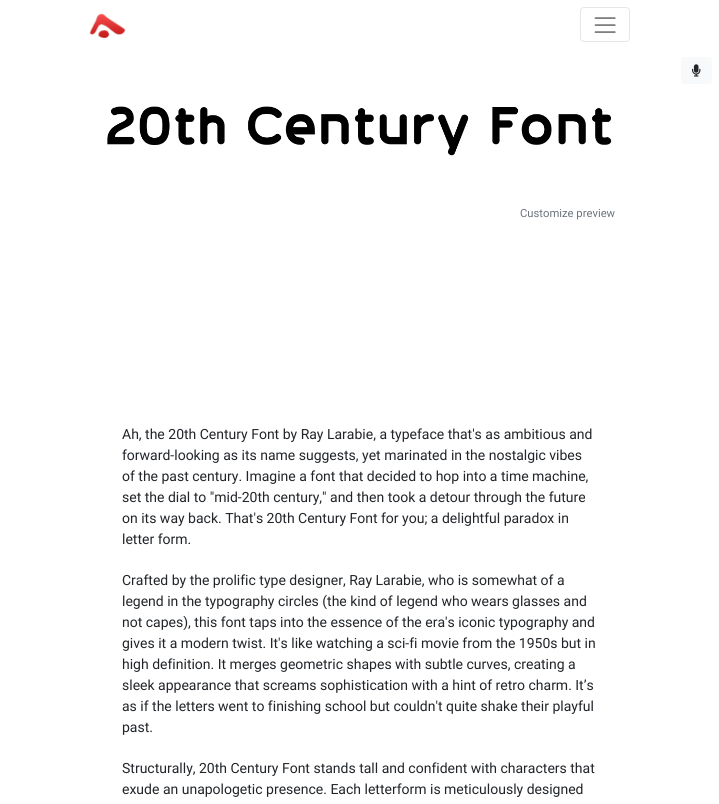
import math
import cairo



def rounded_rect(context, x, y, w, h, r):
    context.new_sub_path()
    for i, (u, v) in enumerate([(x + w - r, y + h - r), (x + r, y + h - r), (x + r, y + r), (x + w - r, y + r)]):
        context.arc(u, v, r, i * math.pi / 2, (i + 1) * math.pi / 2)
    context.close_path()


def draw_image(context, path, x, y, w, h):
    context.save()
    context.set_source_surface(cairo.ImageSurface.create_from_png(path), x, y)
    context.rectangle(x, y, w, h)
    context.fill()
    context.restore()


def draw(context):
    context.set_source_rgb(1, 1, 1)
    context.paint()
    draw_image(context, "images/1.png", 89, 13, 37, 25)
    rounded_rect(context, 580.5, 7.5, 49, 34, 3.5)
    context.set_source_rgb(230 / 255, 230 / 255, 230 / 255)
    context.set_line_width(1)
    context.stroke()
    draw_image(context, "images/2.png", 594, 17, 22, 16)
    context.set_source_rgb(248 / 255, 249 / 255, 250 / 255)
    rounded_rect(context, 681, 57, 31, 27, 3)
    context.fill()
    draw_image(context, "images/3.png", 692, 64, 9, 13)
    draw_image(context, "images/4.png", 107, 106, 505, 50)
    context.select_font_face("Roboto")
    context.set_font_size(11.25)
    context.set_source_rgb(108 / 255, 117 / 255, 125 / 255)
    context.move_to(520, 217)
    context.show_text("Customize preview")
    context.set_font_size(14)
    context.set_source_rgb(33 / 255, 37 / 255, 41 / 255)
    context.move_to(122, 439)
    context.show_text("Ah, the 20th Century Font by Ray Larabie, a typeface that's as ambitious and")
    context.move_to(122, 460)
    context.show_text("forward-looking as its name suggests, yet marinated in the nostalgic vibes")
    context.move_to(122, 481)
    context.show_text("of the past century. Imagine a font that decided to hop into a time machine,")
    context.move_to(122, 502)
    context.show_text("set the dial to \"mid-20th century,\" and then took a detour through the future")
    context.move_to(122, 523)
    context.show_text("on its way back. That's 20th Century Font for you; a delightful paradox in")
    context.move_to(122, 544)
    context.show_text("letter form.")
    context.move_to(122, 585)
    context.show_text("Crafted by the prolific type designer, Ray Larabie, who is somewhat of a")
    context.move_to(122, 606)
    context.show_text("legend in the typography circles (the kind of legend who wears glasses and")
    context.move_to(122, 627)
    context.show_text("not capes), this font taps into the essence of the era's iconic typography and")
    context.move_to(122, 648)
    context.show_text("gives it a modern twist. It's like watching a sci-fi movie from the 1950s but in")
    context.move_to(122, 669)
    context.show_text("high definition. It merges geometric shapes with subtle curves, creating a")
    context.move_to(122, 690)
    context.show_text("sleek appearance that screams sophistication with a hint of retro charm. It’s")
    context.move_to(122, 711)
    context.show_text("as if the letters went to finishing school but couldn't quite shake their playful")
    context.move_to(122, 732)
    context.show_text("past.")
    context.move_to(122, 773)
    context.show_text("Structurally, 20th Century Font stands tall and confident with characters that")
    context.move_to(122, 794)
    context.show_text("exude an unapologetic presence. Each letterform is meticulously designed")


surface = cairo.ImageSurface(cairo.Format.RGB24, 719, 804)
context = cairo.Context(surface)
options = cairo.FontOptions()
options.set_hint_metrics(cairo.HintMetrics.OFF)
options.set_hint_style(cairo.HintStyle.NONE)
context.set_font_options(options)
context.set_miter_limit(4)
draw(context)
surface.write_to_png("out.png")
